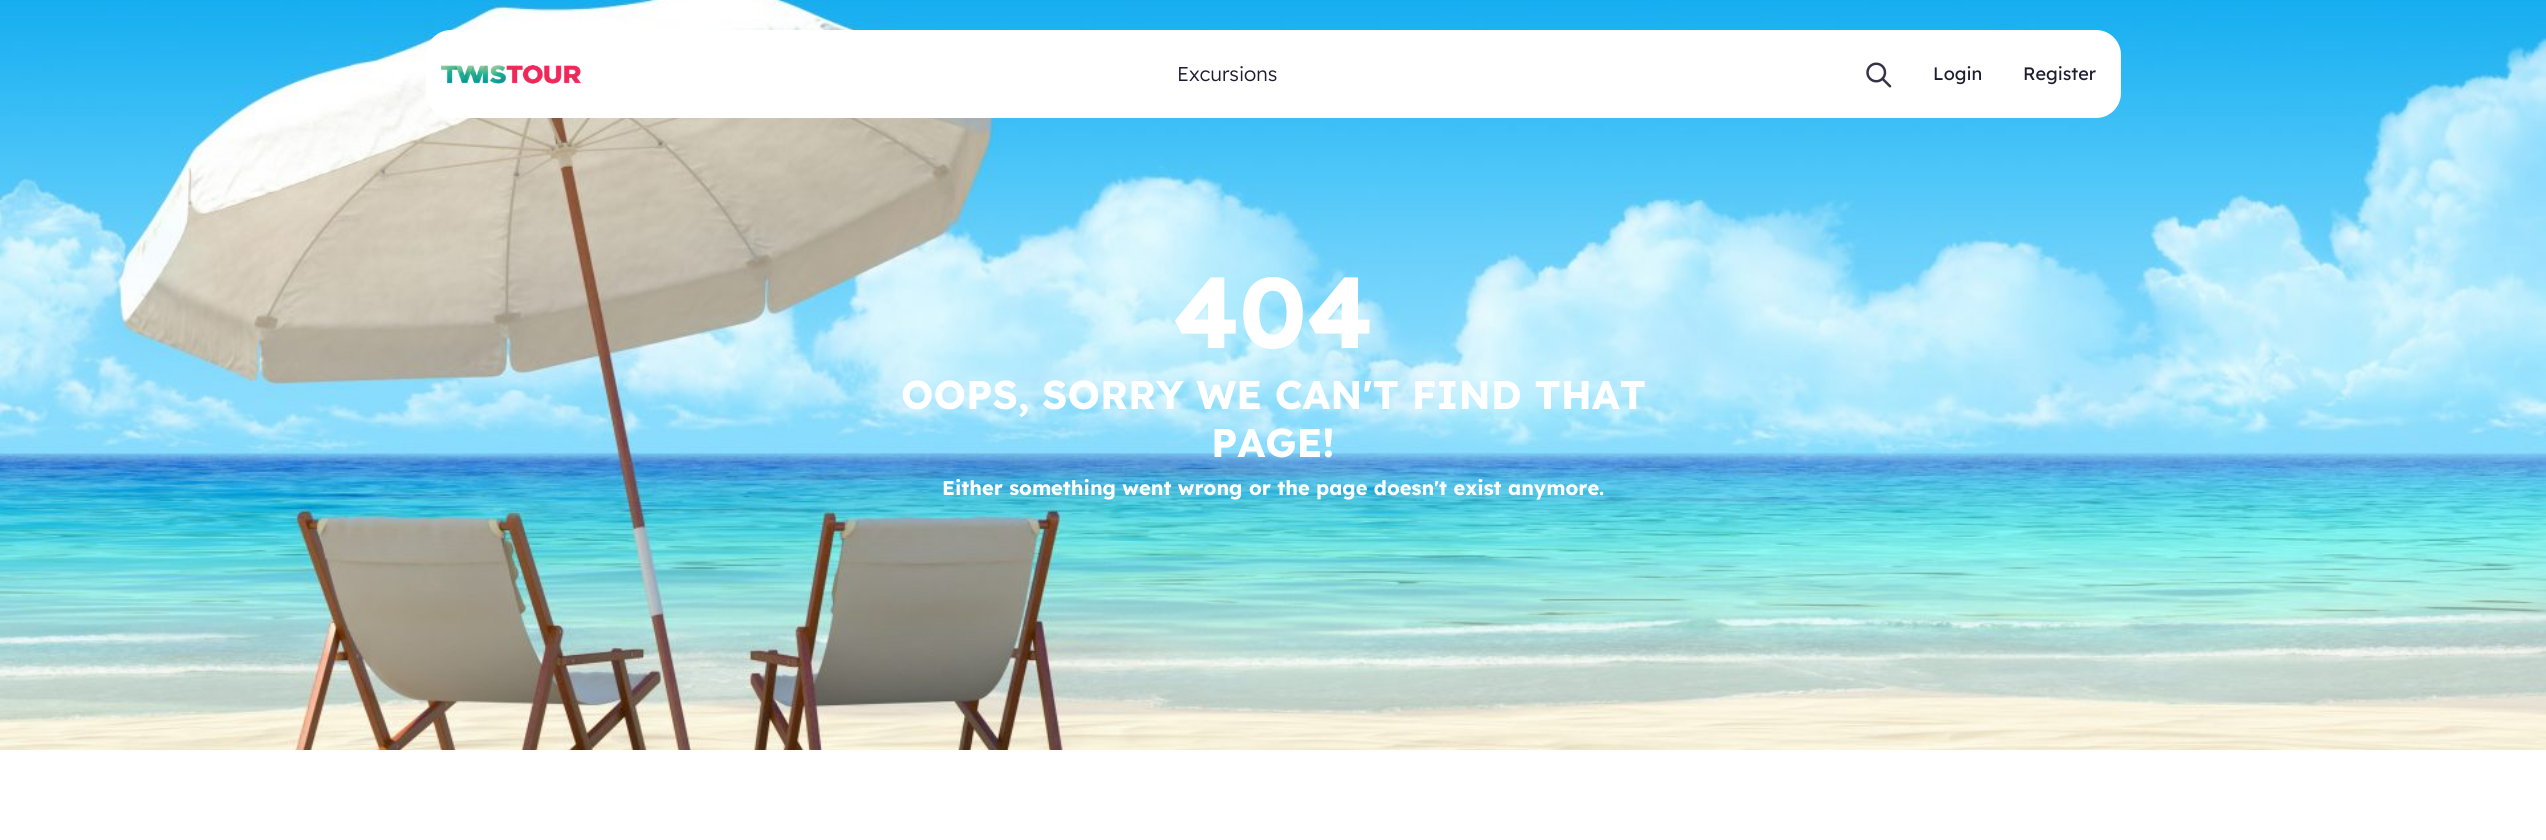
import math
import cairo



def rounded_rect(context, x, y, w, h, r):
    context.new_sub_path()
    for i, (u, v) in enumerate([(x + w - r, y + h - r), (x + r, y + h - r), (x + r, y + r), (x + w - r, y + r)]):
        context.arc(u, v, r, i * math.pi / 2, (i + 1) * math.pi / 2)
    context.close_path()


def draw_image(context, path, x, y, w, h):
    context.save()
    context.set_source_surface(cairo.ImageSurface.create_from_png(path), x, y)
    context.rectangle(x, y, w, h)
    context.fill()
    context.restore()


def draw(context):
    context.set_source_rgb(1, 1, 1)
    context.paint()
    draw_image(context, "images/3.png", 0, 0, 2546, 750)
    context.set_source_rgb(1, 1, 1)
    rounded_rect(context, 426, 30, 1695, 88, 25)
    context.fill()
    draw_image(context, "images/1.png", 441, 65, 141, 19)
    draw_image(context, "images/2.png", 1866, 62, 26, 26)
    context.select_font_face("Lexend Light")
    context.set_font_size(20)
    context.set_source_rgb(30 / 255, 28 / 255, 48 / 255)
    context.move_to(1177, 81)
    context.show_text("Excursions")
    context.select_font_face("Lexend")
    context.set_font_size(18)
    context.move_to(1933, 80)
    context.show_text("Login")
    context.move_to(2023, 80)
    context.show_text("Register")
    context.select_font_face("Lexend", cairo.FontSlant.NORMAL, cairo.FontWeight.BOLD)
    context.set_font_size(100)
    context.set_source_rgb(1, 1, 1)
    context.move_to(1173, 348)
    context.show_text("404")
    context.set_font_size(40)
    context.move_to(901, 409)
    context.show_text("OOPS, SORRY WE CAN'T FIND THAT")
    context.move_to(1211, 457)
    context.show_text("PAGE!")
    context.set_font_size(20)
    context.move_to(942, 495)
    context.show_text("Either something went wrong or the page doesn't exist anymore.")


surface = cairo.ImageSurface(cairo.Format.RGB24, 2546, 840)
context = cairo.Context(surface)
options = cairo.FontOptions()
options.set_hint_metrics(cairo.HintMetrics.OFF)
options.set_hint_style(cairo.HintStyle.NONE)
context.set_font_options(options)
context.set_miter_limit(4)
draw(context)
surface.write_to_png("out.png")
